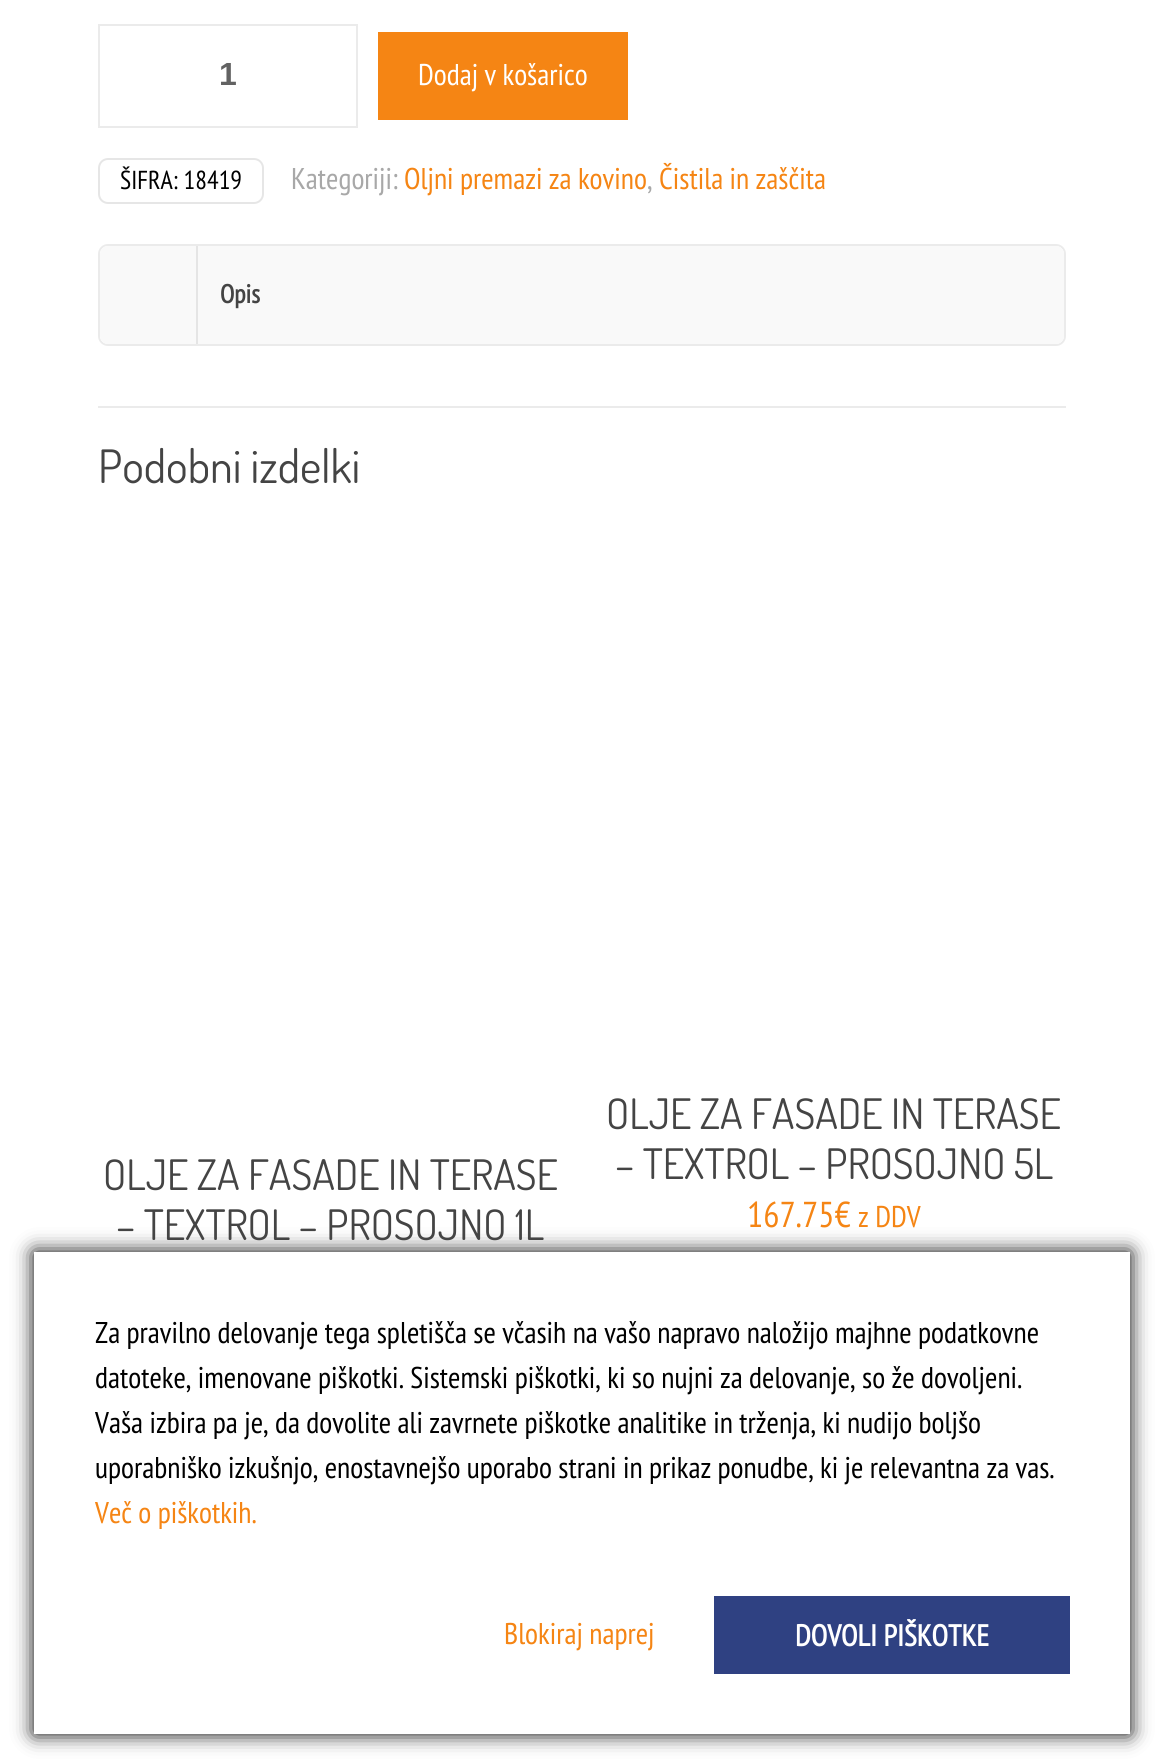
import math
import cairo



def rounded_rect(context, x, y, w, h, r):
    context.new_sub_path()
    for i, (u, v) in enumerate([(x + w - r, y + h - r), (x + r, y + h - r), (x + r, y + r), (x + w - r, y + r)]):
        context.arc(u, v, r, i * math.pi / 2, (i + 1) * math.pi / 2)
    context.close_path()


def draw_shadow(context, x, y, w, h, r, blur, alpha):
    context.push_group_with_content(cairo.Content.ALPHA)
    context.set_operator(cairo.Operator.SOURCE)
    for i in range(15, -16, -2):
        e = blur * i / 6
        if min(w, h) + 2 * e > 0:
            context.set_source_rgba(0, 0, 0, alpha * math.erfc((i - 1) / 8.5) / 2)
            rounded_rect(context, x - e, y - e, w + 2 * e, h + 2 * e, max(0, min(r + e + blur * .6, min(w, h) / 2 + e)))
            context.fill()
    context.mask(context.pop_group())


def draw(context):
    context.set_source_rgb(1, 1, 1)
    context.paint()
    context.rectangle(99, 25, 258, 102)
    context.set_source_rgb(235 / 255, 235 / 255, 235 / 255)
    context.stroke()
    context.set_source_rgb(245 / 255, 133 / 255, 20 / 255)
    context.rectangle(378, 32, 250, 88)
    context.fill()
    rounded_rect(context, 99, 159, 164, 44, 9)
    context.set_source_rgb(230 / 255, 230 / 255, 230 / 255)
    context.stroke()
    rounded_rect(context, 99, 245, 966, 100, 9)
    context.set_source_rgb(235 / 255, 235 / 255, 235 / 255)
    context.stroke()
    context.set_source_rgb(249 / 255, 249 / 255, 249 / 255)
    rounded_rect(context, 100, 246, 964, 98, 8)
    context.fill()
    context.set_source_rgb(229 / 255, 229 / 255, 229 / 255)
    context.rectangle(196, 246, 2, 98)
    context.fill()
    context.set_source_rgb(235 / 255, 235 / 255, 235 / 255)
    context.rectangle(98, 406, 968, 2)
    context.fill()
    context.set_source_rgb(0, 0, 0)
    draw_shadow(context, 34, 1252, 1096, 482, 0, 10, 1)
    context.set_source_rgb(1, 1, 1)
    context.rectangle(34, 1252, 1096, 482)
    context.fill()
    context.set_source_rgb(47 / 255, 65 / 255, 130 / 255)
    context.rectangle(714, 1596, 356, 78)
    context.fill()
    context.select_font_face("Liberation Sans", cairo.FontSlant.NORMAL, cairo.FontWeight.BOLD)
    context.set_font_size(32)
    context.set_source_rgb(98 / 255, 98 / 255, 98 / 255)
    context.move_to(219, 85)
    context.show_text("1")
    context.select_font_face("PT Sans Narrow")
    context.set_font_size(30)
    context.set_source_rgb(1, 1, 1)
    context.move_to(418, 85)
    context.show_text("Dodaj v košarico")
    context.set_font_size(26)
    context.set_source_rgb(0, 0, 0)
    context.move_to(120, 189)
    context.show_text("ŠIFRA: 18419")
    context.set_font_size(30)
    context.set_source_rgb(168 / 255, 168 / 255, 168 / 255)
    context.move_to(291, 189)
    context.show_text("Kategoriji:")
    context.set_source_rgb(245 / 255, 133 / 255, 20 / 255)
    context.move_to(404, 189)
    context.show_text("Oljni premazi za kovino")
    context.set_source_rgb(168 / 255, 168 / 255, 168 / 255)
    context.move_to(647, 189)
    context.show_text(",")
    context.set_source_rgb(245 / 255, 133 / 255, 20 / 255)
    context.move_to(659, 189)
    context.show_text("Čistila in zaščita")
    context.select_font_face("PT Sans Narrow", cairo.FontSlant.NORMAL, cairo.FontWeight.BOLD)
    context.set_font_size(26)
    context.set_source_rgb(68 / 255, 68 / 255, 68 / 255)
    context.move_to(220, 303)
    context.show_text("Opis")
    context.select_font_face("Dosis")
    context.set_font_size(46)
    context.move_to(98, 483)
    context.show_text("Podobni izdelki")
    context.set_font_size(42)
    context.move_to(103, 1190)
    context.show_text("OLJE ZA FASADE IN TERASE")
    context.move_to(116, 1240)
    context.show_text("– TEXTROL – PROSOJNO 1L")
    context.move_to(606, 1129)
    context.show_text("OLJE ZA FASADE IN TERASE")
    context.move_to(615, 1179)
    context.show_text("– TEXTROL – PROSOJNO 5L")
    context.select_font_face("PT Sans Narrow")
    context.set_font_size(36)
    context.set_source_rgb(245 / 255, 133 / 255, 20 / 255)
    context.move_to(747, 1227)
    context.show_text("167.75€")
    context.set_font_size(30)
    context.move_to(858, 1227)
    context.show_text("z DDV")
    context.set_source_rgb(0, 0, 0)
    context.move_to(95, 1343)
    context.show_text("Za pravilno delovanje tega spletišča se včasih na vašo napravo naložijo majhne podatkovne")
    context.move_to(95, 1388)
    context.show_text("datoteke, imenovane piškotki. Sistemski piškotki, ki so nujni za delovanje, so že dovoljeni.")
    context.move_to(95, 1433)
    context.show_text("Vaša izbira pa je, da dovolite ali zavrnete piškotke analitike in trženja, ki nudijo boljšo")
    context.move_to(95, 1478)
    context.show_text("uporabniško izkušnjo, enostavnejšo uporabo strani in prikaz ponudbe, ki je relevantna za vas.")
    context.set_source_rgb(245 / 255, 133 / 255, 20 / 255)
    context.move_to(95, 1523)
    context.show_text("Več o piškotkih.")
    context.move_to(504, 1644)
    context.show_text("Blokiraj naprej")
    context.select_font_face("PT Sans Narrow", cairo.FontSlant.NORMAL, cairo.FontWeight.BOLD)
    context.set_source_rgb(1, 1, 1)
    context.move_to(795, 1646)
    context.show_text("DOVOLI PIŠKOTKE")


surface = cairo.ImageSurface(cairo.Format.RGB24, 1163, 1763)
context = cairo.Context(surface)
options = cairo.FontOptions()
options.set_hint_metrics(cairo.HintMetrics.OFF)
options.set_hint_style(cairo.HintStyle.NONE)
context.set_font_options(options)
context.set_miter_limit(4)
draw(context)
surface.write_to_png("out.png")
